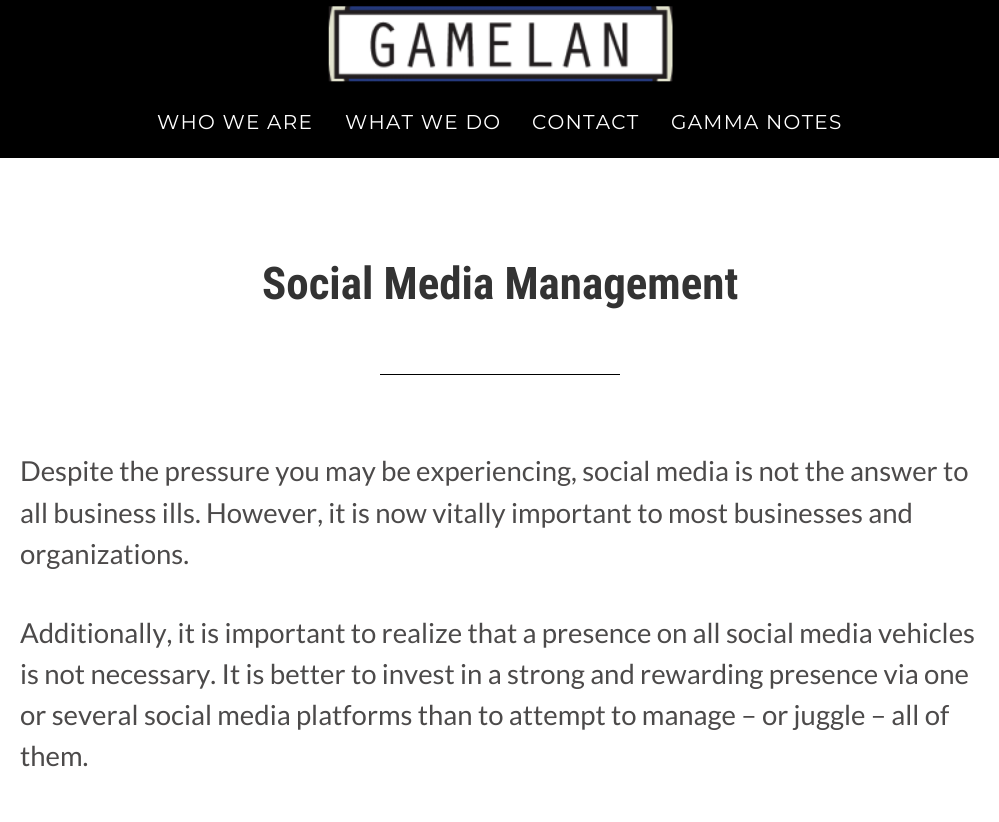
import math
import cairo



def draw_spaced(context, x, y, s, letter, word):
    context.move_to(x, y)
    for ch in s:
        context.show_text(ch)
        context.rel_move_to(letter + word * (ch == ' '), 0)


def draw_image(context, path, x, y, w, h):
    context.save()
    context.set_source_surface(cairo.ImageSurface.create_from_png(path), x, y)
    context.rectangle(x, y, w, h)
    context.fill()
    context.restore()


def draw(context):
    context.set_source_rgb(1, 1, 1)
    context.paint()
    context.set_source_rgb(0, 0, 0)
    context.rectangle(0, 0, 999, 158)
    context.fill()
    draw_image(context, "images/1.png", 328, 6, 345, 76)
    context.rectangle(380, 374, 240, 1)
    context.fill()
    context.select_font_face("Montserrat Thin")
    context.set_font_size(20)
    context.set_source_rgb(1, 1, 1)
    draw_spaced(context, 157, 129, "WHO WE ARE", 1.25, 0)
    draw_spaced(context, 345, 129, "WHAT WE DO", 1.25, 0)
    draw_spaced(context, 532, 129, "CONTACT", 1.25, 0)
    draw_spaced(context, 671, 129, "GAMMA NOTES", 1.25, 0)
    context.select_font_face("Roboto Condensed", cairo.FontSlant.NORMAL, cairo.FontWeight.BOLD)
    context.set_font_size(45)
    context.set_source_rgb(51 / 255, 51 / 255, 51 / 255)
    context.move_to(262, 299)
    context.show_text("Social Media Management")
    context.select_font_face("Lato")
    context.set_font_size(27.5)
    context.set_source_rgb(76 / 255, 74 / 255, 74 / 255)
    context.move_to(20, 481)
    context.show_text("Despite the pressure you may be experiencing, social media is not the answer to")
    context.move_to(20, 523)
    context.show_text("all business ills. However, it is now vitally important to most businesses and")
    context.move_to(20, 564)
    context.show_text("organizations.")
    context.move_to(20, 643)
    context.show_text("Additionally, it is important to realize that a presence on all social media vehicles")
    context.move_to(20, 684)
    context.show_text("is not necessary. It is better to invest in a strong and rewarding presence via one")
    context.move_to(20, 725)
    context.show_text("or several social media platforms than to attempt to manage – or juggle – all of")
    context.move_to(20, 766)
    context.show_text("them.")


surface = cairo.ImageSurface(cairo.Format.RGB24, 999, 822)
context = cairo.Context(surface)
options = cairo.FontOptions()
options.set_hint_metrics(cairo.HintMetrics.OFF)
options.set_hint_style(cairo.HintStyle.NONE)
context.set_font_options(options)
context.set_miter_limit(4)
draw(context)
surface.write_to_png("out.png")
